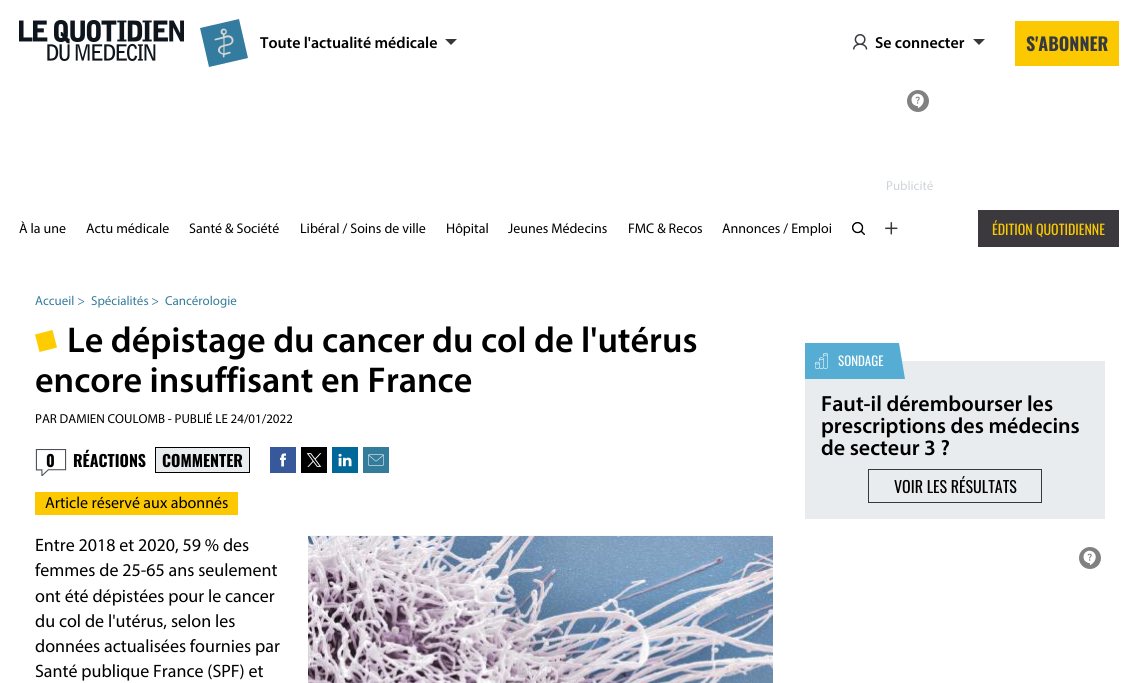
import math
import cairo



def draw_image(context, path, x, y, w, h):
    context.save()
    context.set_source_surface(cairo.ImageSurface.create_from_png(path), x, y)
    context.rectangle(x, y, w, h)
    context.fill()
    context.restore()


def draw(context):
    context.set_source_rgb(1, 1, 1)
    context.paint()
    draw_image(context, "images/1.png", 19, 20, 165, 41)
    context.set_source_rgb(51 / 255, 124 / 255, 159 / 255)
    context.new_path()
    context.move_to(200, 28)
    context.line_to(239, 19)
    context.line_to(248, 58)
    context.line_to(209, 67)
    context.close_path()
    context.fill()
    draw_image(context, "images/2.png", 214, 28, 20, 30)
    context.set_source_rgb(55 / 255, 54 / 255, 59 / 255)
    context.new_path()
    context.move_to(445, 39)
    context.line_to(457, 39)
    context.line_to(451, 45)
    context.close_path()
    context.fill()
    draw_image(context, "images/3.png", 853, 34, 15, 16)
    context.new_path()
    context.move_to(973, 39)
    context.line_to(985, 39)
    context.line_to(979, 45)
    context.close_path()
    context.fill()
    context.set_source_rgb(252 / 255, 201 / 255, 0)
    context.rectangle(1015, 21, 104, 45)
    context.fill()
    context.set_source_rgb(129 / 255, 129 / 255, 129 / 255)
    context.arc(918, 101, 11, 0, 2 * math.pi)
    context.fill()
    draw_image(context, "images/4.png", 911, 93, 13, 16)
    draw_image(context, "images/5.png", 852, 222, 13, 13)
    draw_image(context, "images/6.png", 885, 222, 13, 13)
    context.set_source_rgb(59 / 255, 57 / 255, 62 / 255)
    context.rectangle(978, 210, 141, 37)
    context.fill()
    context.set_source_rgb(254 / 255, 204 / 255, 0)
    context.new_path()
    context.move_to(35, 334.5)
    context.line_to(52.5, 330)
    context.line_to(57, 347.5)
    context.line_to(39.5, 352)
    context.close_path()
    context.fill()
    draw_image(context, "images/7.png", 35, 449, 32, 27)
    context.set_source_rgb(233 / 255, 236 / 255, 239 / 255)
    context.rectangle(155.5, 447.5, 94, 25)
    context.fill_preserve()
    context.set_source_rgb(0, 0, 0)
    context.set_line_width(1)
    context.stroke()
    draw_image(context, "images/8.png", 270, 447, 26, 26)
    draw_image(context, "images/9.png", 301, 447, 26, 26)
    draw_image(context, "images/10.png", 332, 447, 26, 26)
    draw_image(context, "images/11.png", 363, 447, 26, 26)
    context.set_source_rgb(252 / 255, 201 / 255, 0)
    context.rectangle(35, 492, 203, 23)
    context.fill()
    context.set_source_rgb(248 / 255, 249 / 255, 250 / 255)
    context.rectangle(308, 535, 465, 1)
    context.fill()
    draw_image(context, "images/12.png", 308, 536, 465, 147)
    context.set_source_rgb(86 / 255, 173 / 255, 212 / 255)
    context.rectangle(805, 343, 87, 36)
    context.fill()
    draw_image(context, "images/13.png", 815, 353, 13, 16)
    context.set_source_rgb(233 / 255, 236 / 255, 239 / 255)
    context.rectangle(902, 361, 203, 18)
    context.fill()
    context.save()
    context.rectangle(892, 343, 15, 36)
    context.clip()
    context.set_source_rgb(86 / 255, 173 / 255, 212 / 255)
    context.new_path()
    context.move_to(907, 391)
    context.line_to(892, 391)
    context.line_to(892, 331)
    context.line_to(897, 331)
    context.close_path()
    context.fill()
    context.restore()
    context.rectangle(805, 379, 300, 140)
    context.fill()
    context.rectangle(868.5, 469.5, 173, 33)
    context.set_source_rgb(52 / 255, 58 / 255, 64 / 255)
    context.stroke()
    context.set_source_rgb(129 / 255, 129 / 255, 129 / 255)
    context.arc(1090, 558, 11, 0, 2 * math.pi)
    context.fill()
    draw_image(context, "images/14.png", 1083, 550, 13, 16)
    context.select_font_face("Myriad SemiBold")
    context.set_font_size(16)
    context.set_source_rgb(0, 0, 0)
    context.move_to(260, 48)
    context.show_text("Toute l'actualité médicale")
    context.move_to(875, 48)
    context.show_text("Se connecter")
    context.select_font_face("Oswald", cairo.FontSlant.NORMAL, cairo.FontWeight.BOLD)
    context.set_font_size(18)
    context.set_source_rgb(52 / 255, 58 / 255, 64 / 255)
    context.move_to(1026, 51)
    context.show_text("S'ABONNER")
    context.select_font_face("Myriad")
    context.set_font_size(13)
    context.set_source_rgb(206 / 255, 212 / 255, 218 / 255)
    context.move_to(886, 190)
    context.show_text("Publicité")
    context.set_font_size(14)
    context.set_source_rgb(0, 0, 0)
    context.move_to(19, 233)
    context.show_text("À la une")
    context.move_to(86, 233)
    context.show_text("Actu médicale")
    context.move_to(189, 233)
    context.show_text("Santé & Société")
    context.move_to(300, 233)
    context.show_text("Libéral / Soins de ville")
    context.move_to(446, 233)
    context.show_text("Hôpital")
    context.move_to(508, 233)
    context.show_text("Jeunes Médecins")
    context.move_to(628, 233)
    context.show_text("FMC & Recos")
    context.move_to(722, 233)
    context.show_text("Annonces / Emploi")
    context.select_font_face("Oswald")
    context.set_source_rgb(252 / 255, 201 / 255, 0)
    context.move_to(992, 235)
    context.show_text("ÉDITION QUOTIDIENNE")
    context.select_font_face("Myriad")
    context.set_font_size(13)
    context.set_source_rgb(51 / 255, 124 / 255, 156 / 255)
    context.move_to(35, 305)
    context.show_text("Accueil >")
    context.move_to(91, 305)
    context.show_text("Spécialités >")
    context.move_to(165, 305)
    context.show_text("Cancérologie")
    context.select_font_face("Myriad SemiBold")
    context.set_font_size(36)
    context.set_source_rgb(0, 0, 0)
    context.move_to(67, 352)
    context.show_text("Le dépistage du cancer du col de l'utérus")
    context.move_to(35, 392)
    context.show_text("encore insuffisant en France")
    context.select_font_face("Myriad")
    context.set_font_size(13)
    context.move_to(35, 423)
    context.show_text("PAR DAMIEN COULOMB - PUBLIÉ LE 24/01/2022")
    context.select_font_face("Oswald", cairo.FontSlant.NORMAL, cairo.FontWeight.BOLD)
    context.set_font_size(16)
    context.move_to(46, 467)
    context.show_text("0")
    context.move_to(73, 467)
    context.show_text("RÉACTIONS")
    context.move_to(162, 467)
    context.show_text("COMMENTER")
    context.select_font_face("Myriad")
    context.move_to(45, 508)
    context.show_text("Article réservé aux abonnés")
    context.set_font_size(18)
    context.move_to(35, 551)
    context.show_text("Entre 2018 et 2020, 59 % des")
    context.move_to(35, 576)
    context.show_text("femmes de 25-65 ans seulement")
    context.move_to(35, 602)
    context.show_text("ont été dépistées pour le cancer")
    context.move_to(35, 627)
    context.show_text("du col de l'utérus, selon les")
    context.move_to(35, 652)
    context.show_text("données actualisées fournies par")
    context.move_to(35, 677)
    context.show_text("Santé publique France (SPF) et")
    context.select_font_face("Oswald")
    context.set_font_size(13)
    context.set_source_rgb(1, 1, 1)
    context.move_to(838, 366)
    context.show_text("SONDAGE")
    context.select_font_face("Myriad SemiBold")
    context.set_font_size(22)
    context.set_source_rgb(0, 0, 0)
    context.move_to(821, 411)
    context.show_text("Faut-il dérembourser les")
    context.move_to(821, 433)
    context.show_text("prescriptions des médecins")
    context.move_to(821, 455)
    context.show_text("de secteur 3 ?")
    context.select_font_face("Oswald")
    context.set_font_size(16)
    context.move_to(894, 493)
    context.show_text("VOIR LES RÉSULTATS")


surface = cairo.ImageSurface(cairo.Format.RGB24, 1138, 683)
context = cairo.Context(surface)
options = cairo.FontOptions()
options.set_hint_metrics(cairo.HintMetrics.OFF)
options.set_hint_style(cairo.HintStyle.NONE)
context.set_font_options(options)
context.set_miter_limit(4)
draw(context)
surface.write_to_png("out.png")
